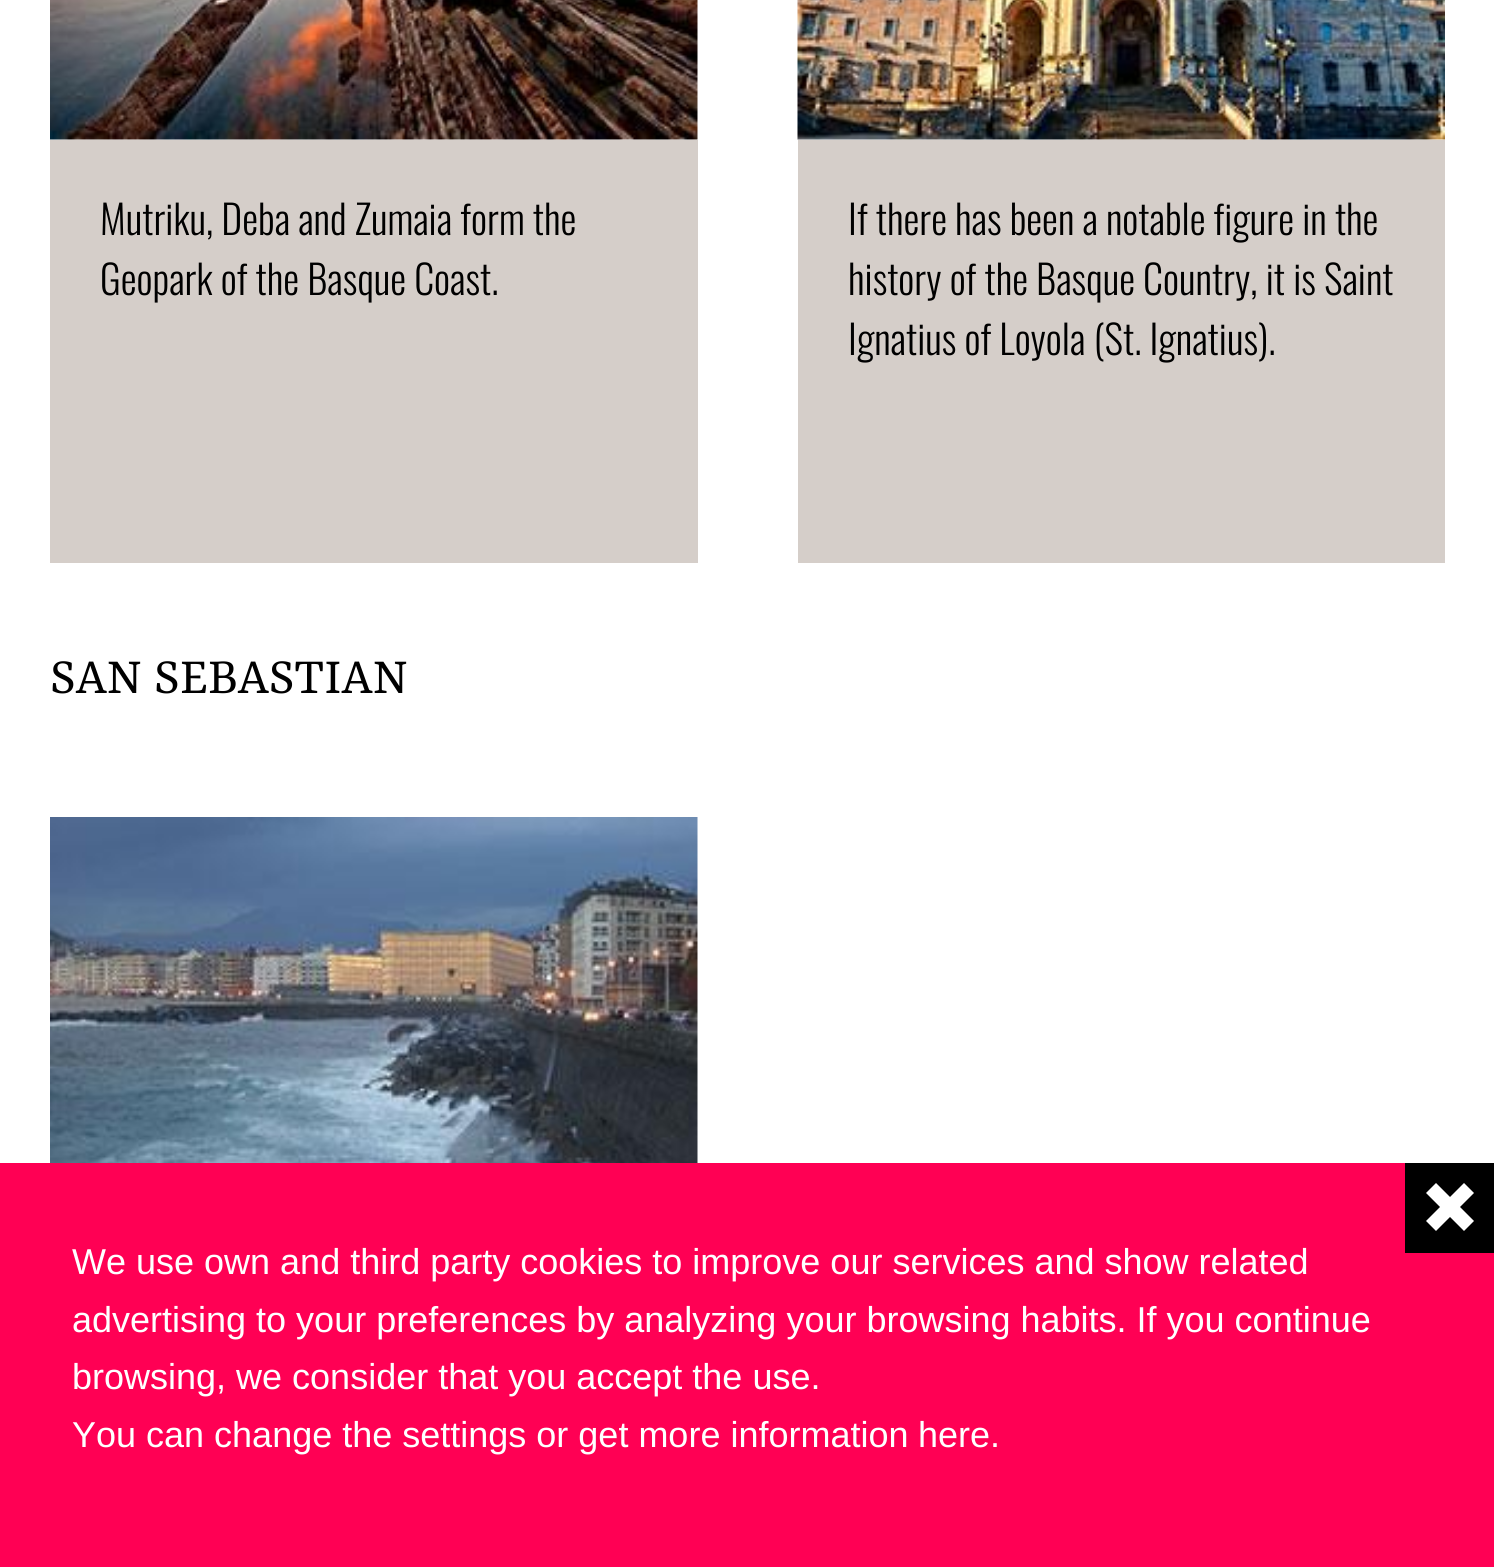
import math
import cairo



def draw_image(context, path, x, y, w, h):
    context.save()
    context.set_source_surface(cairo.ImageSurface.create_from_png(path), x, y)
    context.rectangle(x, y, w, h)
    context.fill()
    context.restore()


def draw(context):
    context.set_source_rgb(1, 1, 1)
    context.paint()
    draw_image(context, "images/1.png", 50, 0, 648, 140)
    context.set_source_rgb(213 / 255, 206 / 255, 201 / 255)
    context.rectangle(50, 140, 648, 423)
    context.fill()
    draw_image(context, "images/2.png", 797, 0, 648, 140)
    context.rectangle(798, 140, 647, 423)
    context.fill()
    draw_image(context, "images/3.png", 50, 817, 648, 346)
    context.set_source_rgb(1, 0, 84 / 255)
    context.rectangle(0, 1163, 1494, 404)
    context.fill()
    context.set_source_rgb(0, 0, 0)
    context.rectangle(1405, 1163, 89, 90)
    context.fill()
    context.set_source_rgb(1, 1, 1)
    context.new_path()
    context.move_to(1436, 1183)
    context.line_to(1474, 1221)
    context.line_to(1464, 1231)
    context.line_to(1426, 1193)
    context.close_path()
    context.fill()
    context.new_path()
    context.move_to(1426, 1221)
    context.line_to(1464, 1183)
    context.line_to(1474, 1193)
    context.line_to(1436, 1231)
    context.close_path()
    context.fill()
    context.select_font_face("Oswald Light")
    context.set_font_size(40)
    context.set_source_rgb(0, 0, 0)
    context.move_to(100, 235)
    context.show_text("Mutriku, Deba and Zumaia form the")
    context.move_to(100, 295)
    context.show_text("Geopark of the Basque Coast.")
    context.move_to(848, 235)
    context.show_text("If there has been a notable figure in the")
    context.move_to(848, 295)
    context.show_text("history of the Basque Country, it is Saint")
    context.move_to(848, 355)
    context.show_text("Ignatius of Loyola (St. Ignatius).")
    context.select_font_face("Rasa")
    context.set_font_size(55)
    context.move_to(50, 693)
    context.show_text("SAN SEBASTIAN")
    context.select_font_face("Liberation Sans")
    context.set_font_size(36)
    context.set_source_rgb(1, 1, 1)
    context.move_to(72, 1274)
    context.show_text("We use own and third party cookies to improve our services and show related")
    context.move_to(72, 1332)
    context.show_text("advertising to your preferences by analyzing your browsing habits. If you continue")
    context.move_to(72, 1389)
    context.show_text("browsing, we consider that you accept the use.")
    context.move_to(72, 1447)
    context.show_text("You can change the settings or get more information")
    context.move_to(918, 1447)
    context.show_text("here.")


surface = cairo.ImageSurface(cairo.Format.RGB24, 1494, 1567)
context = cairo.Context(surface)
options = cairo.FontOptions()
options.set_hint_metrics(cairo.HintMetrics.OFF)
options.set_hint_style(cairo.HintStyle.NONE)
context.set_font_options(options)
context.set_miter_limit(4)
draw(context)
surface.write_to_png("out.png")
